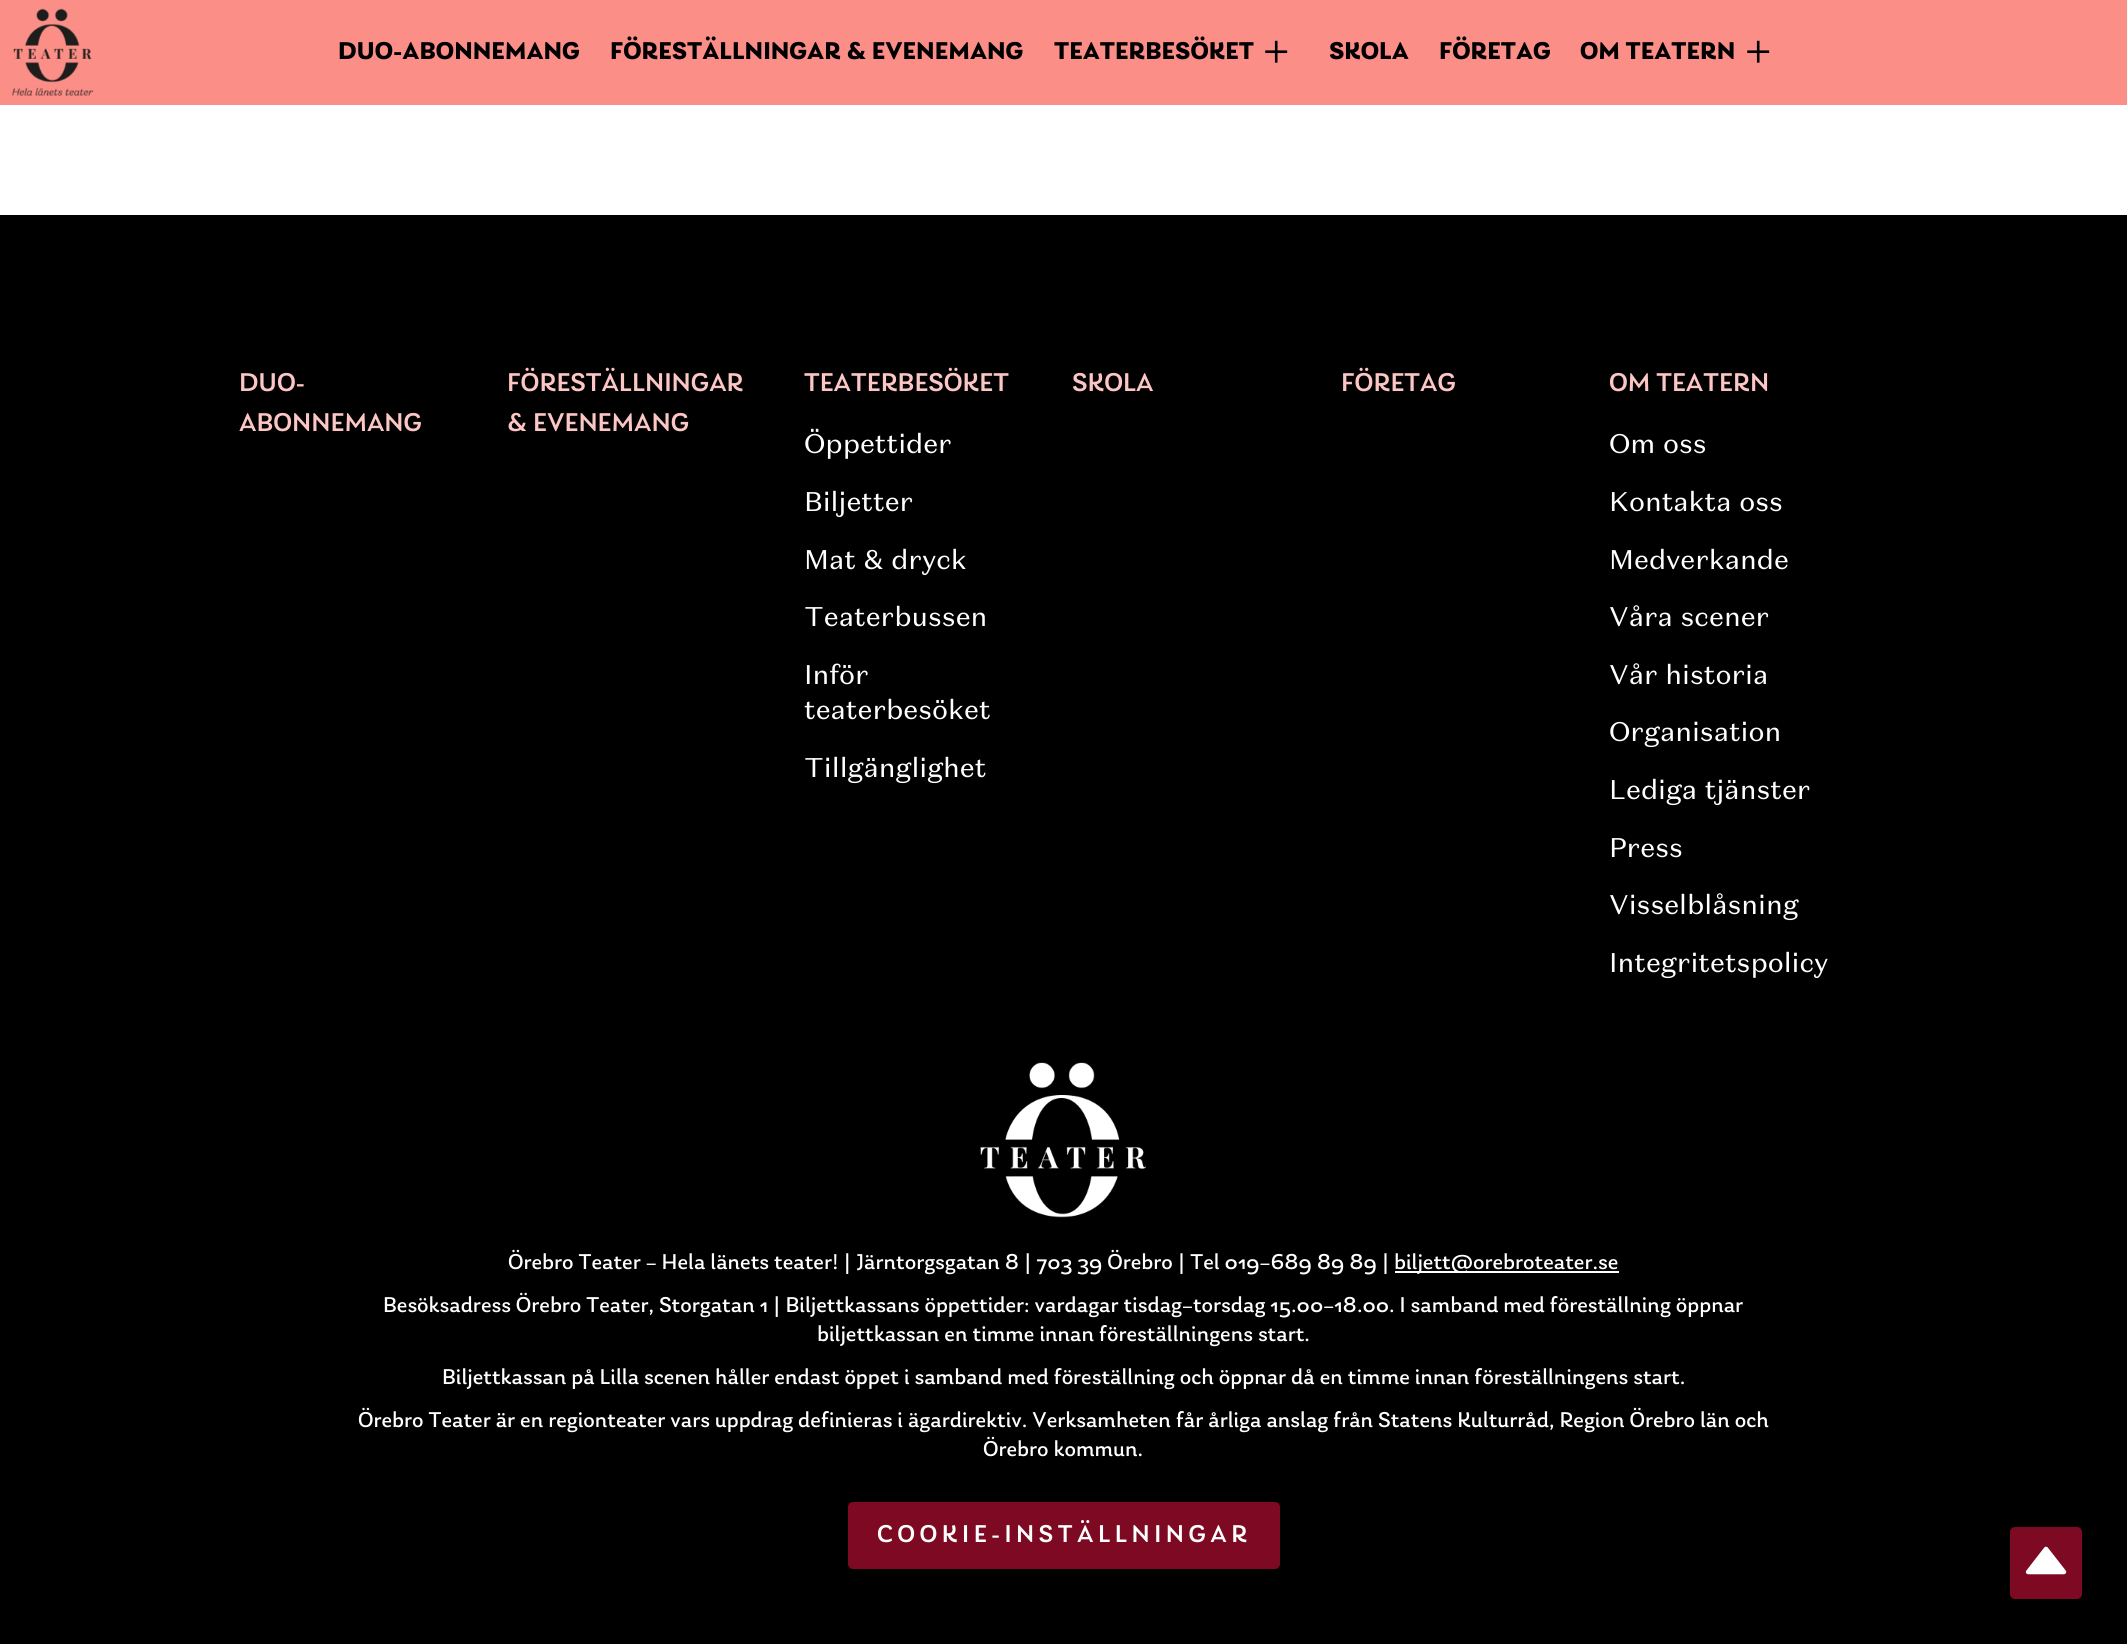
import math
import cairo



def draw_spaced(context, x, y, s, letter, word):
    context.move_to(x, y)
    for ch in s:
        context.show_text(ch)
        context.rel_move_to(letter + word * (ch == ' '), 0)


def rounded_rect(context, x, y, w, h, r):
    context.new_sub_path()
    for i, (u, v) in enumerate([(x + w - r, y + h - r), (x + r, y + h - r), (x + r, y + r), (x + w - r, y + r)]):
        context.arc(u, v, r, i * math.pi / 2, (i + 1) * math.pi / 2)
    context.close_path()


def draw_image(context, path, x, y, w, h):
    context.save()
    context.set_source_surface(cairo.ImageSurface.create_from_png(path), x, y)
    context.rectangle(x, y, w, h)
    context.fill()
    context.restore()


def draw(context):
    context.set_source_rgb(1, 1, 1)
    context.paint()
    context.set_source_rgb(251 / 255, 142 / 255, 135 / 255)
    context.rectangle(0, 0, 2127, 105)
    context.fill()
    draw_image(context, "images/1.png", 12, 8, 82, 88)
    context.set_source_rgb(0, 0, 0)
    context.rectangle(0, 215, 2127, 1429)
    context.fill()
    draw_image(context, "images/2.png", 980, 1062, 166, 156)
    context.set_source_rgb(1, 1, 1)
    context.rectangle(1395, 1271, 224, 2)
    context.fill()
    context.set_source_rgb(125 / 255, 9 / 255, 35 / 255)
    rounded_rect(context, 848, 1502, 432, 67, 5)
    context.fill()
    rounded_rect(context, 2010, 1527, 72, 72, 5)
    context.fill()
    draw_image(context, "images/3.png", 2025, 1546, 42, 29)
    context.select_font_face("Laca", cairo.FontSlant.NORMAL, cairo.FontWeight.BOLD)
    context.set_font_size(25.5)
    context.set_source_rgb(0, 0, 0)
    context.move_to(338, 59)
    context.show_text("DUO-ABONNEMANG")
    context.move_to(610, 59)
    context.show_text("FÖRESTÄLLNINGAR & EVENEMANG")
    context.move_to(1054, 59)
    context.show_text("TEATERBESÖKET")
    context.select_font_face("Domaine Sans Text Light")
    context.set_font_size(48)
    context.move_to(1261, 68)
    context.show_text("+")
    context.select_font_face("Laca", cairo.FontSlant.NORMAL, cairo.FontWeight.BOLD)
    context.set_font_size(25.5)
    context.move_to(1329, 59)
    context.show_text("SKOLA")
    context.move_to(1439, 59)
    context.show_text("FÖRETAG")
    context.move_to(1580, 59)
    context.show_text("OM TEATERN")
    context.select_font_face("Domaine Sans Text Light")
    context.set_font_size(48)
    context.move_to(1743, 68)
    context.show_text("+")
    context.select_font_face("Laca Medium")
    context.set_font_size(27)
    context.set_source_rgb(251 / 255, 198 / 255, 196 / 255)
    context.move_to(239, 391)
    context.show_text("DUO-")
    context.move_to(239, 431)
    context.show_text("ABONNEMANG")
    context.move_to(507, 391)
    context.show_text("FÖRESTÄLLNINGAR")
    context.move_to(507, 431)
    context.show_text("& EVENEMANG")
    context.move_to(804, 391)
    context.show_text("TEATERBESÖKET")
    context.select_font_face("Domaine Sans Text")
    context.set_source_rgb(1, 1, 1)
    context.move_to(804, 453)
    context.show_text("Öppettider")
    context.move_to(804, 511)
    context.show_text("Biljetter")
    context.move_to(804, 569)
    context.show_text("Mat & dryck")
    context.move_to(804, 626)
    context.show_text("Teaterbussen")
    context.move_to(804, 684)
    context.show_text("Inför")
    context.move_to(804, 719)
    context.show_text("teaterbesöket")
    context.move_to(804, 777)
    context.show_text("Tillgänglighet")
    context.select_font_face("Laca Medium")
    context.set_source_rgb(251 / 255, 198 / 255, 196 / 255)
    context.move_to(1072, 391)
    context.show_text("SKOLA")
    context.move_to(1341, 391)
    context.show_text("FÖRETAG")
    context.move_to(1609, 391)
    context.show_text("OM TEATERN")
    context.select_font_face("Domaine Sans Text")
    context.set_source_rgb(1, 1, 1)
    context.move_to(1609, 453)
    context.show_text("Om oss")
    context.move_to(1609, 511)
    context.show_text("Kontakta oss")
    context.move_to(1609, 569)
    context.show_text("Medverkande")
    context.move_to(1609, 626)
    context.show_text("Våra scener")
    context.move_to(1609, 684)
    context.show_text("Vår historia")
    context.move_to(1609, 741)
    context.show_text("Organisation")
    context.move_to(1609, 799)
    context.show_text("Lediga tjänster")
    context.move_to(1609, 857)
    context.show_text("Press")
    context.move_to(1609, 914)
    context.show_text("Visselblåsning")
    context.move_to(1609, 972)
    context.show_text("Integritetspolicy")
    context.select_font_face("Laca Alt")
    context.set_font_size(22.5)
    context.move_to(508, 1269)
    context.show_text("Örebro Teater – Hela länets teater! | Järntorgsgatan 8 | 703 39 Örebro | Tel 019–689 89 89 |")
    context.select_font_face("Laca")
    context.move_to(1394, 1269)
    context.show_text("biljett@orebroteater.se")
    context.select_font_face("Laca Alt")
    context.move_to(383, 1312)
    context.show_text("Besöksadress Örebro Teater, Storgatan 1 | Biljettkassans öppettider: vardagar tisdag–torsdag 15.00–18.00. I samband med föreställning öppnar")
    context.select_font_face("Laca")
    context.move_to(817, 1341)
    context.show_text("biljettkassan en timme innan föreställningens start.")
    context.move_to(442, 1384)
    context.show_text("Biljettkassan på Lilla scenen håller endast öppet i samband med föreställning och öppnar då en timme innan föreställningens start.")
    context.move_to(358, 1427)
    context.show_text("Örebro Teater är en regionteater vars uppdrag definieras i ägardirektiv. Verksamheten får årliga anslag från Statens Kulturråd, Region Örebro län och")
    context.move_to(983, 1456)
    context.show_text("Örebro kommun.")
    context.select_font_face("Laca Medium")
    context.set_font_size(25.5)
    draw_spaced(context, 877, 1542, "COOKIE-INSTÄLLNINGAR", 4.5, 0)


surface = cairo.ImageSurface(cairo.Format.RGB24, 2127, 1644)
context = cairo.Context(surface)
options = cairo.FontOptions()
options.set_hint_metrics(cairo.HintMetrics.OFF)
options.set_hint_style(cairo.HintStyle.NONE)
context.set_font_options(options)
context.set_miter_limit(4)
draw(context)
surface.write_to_png("out.png")
